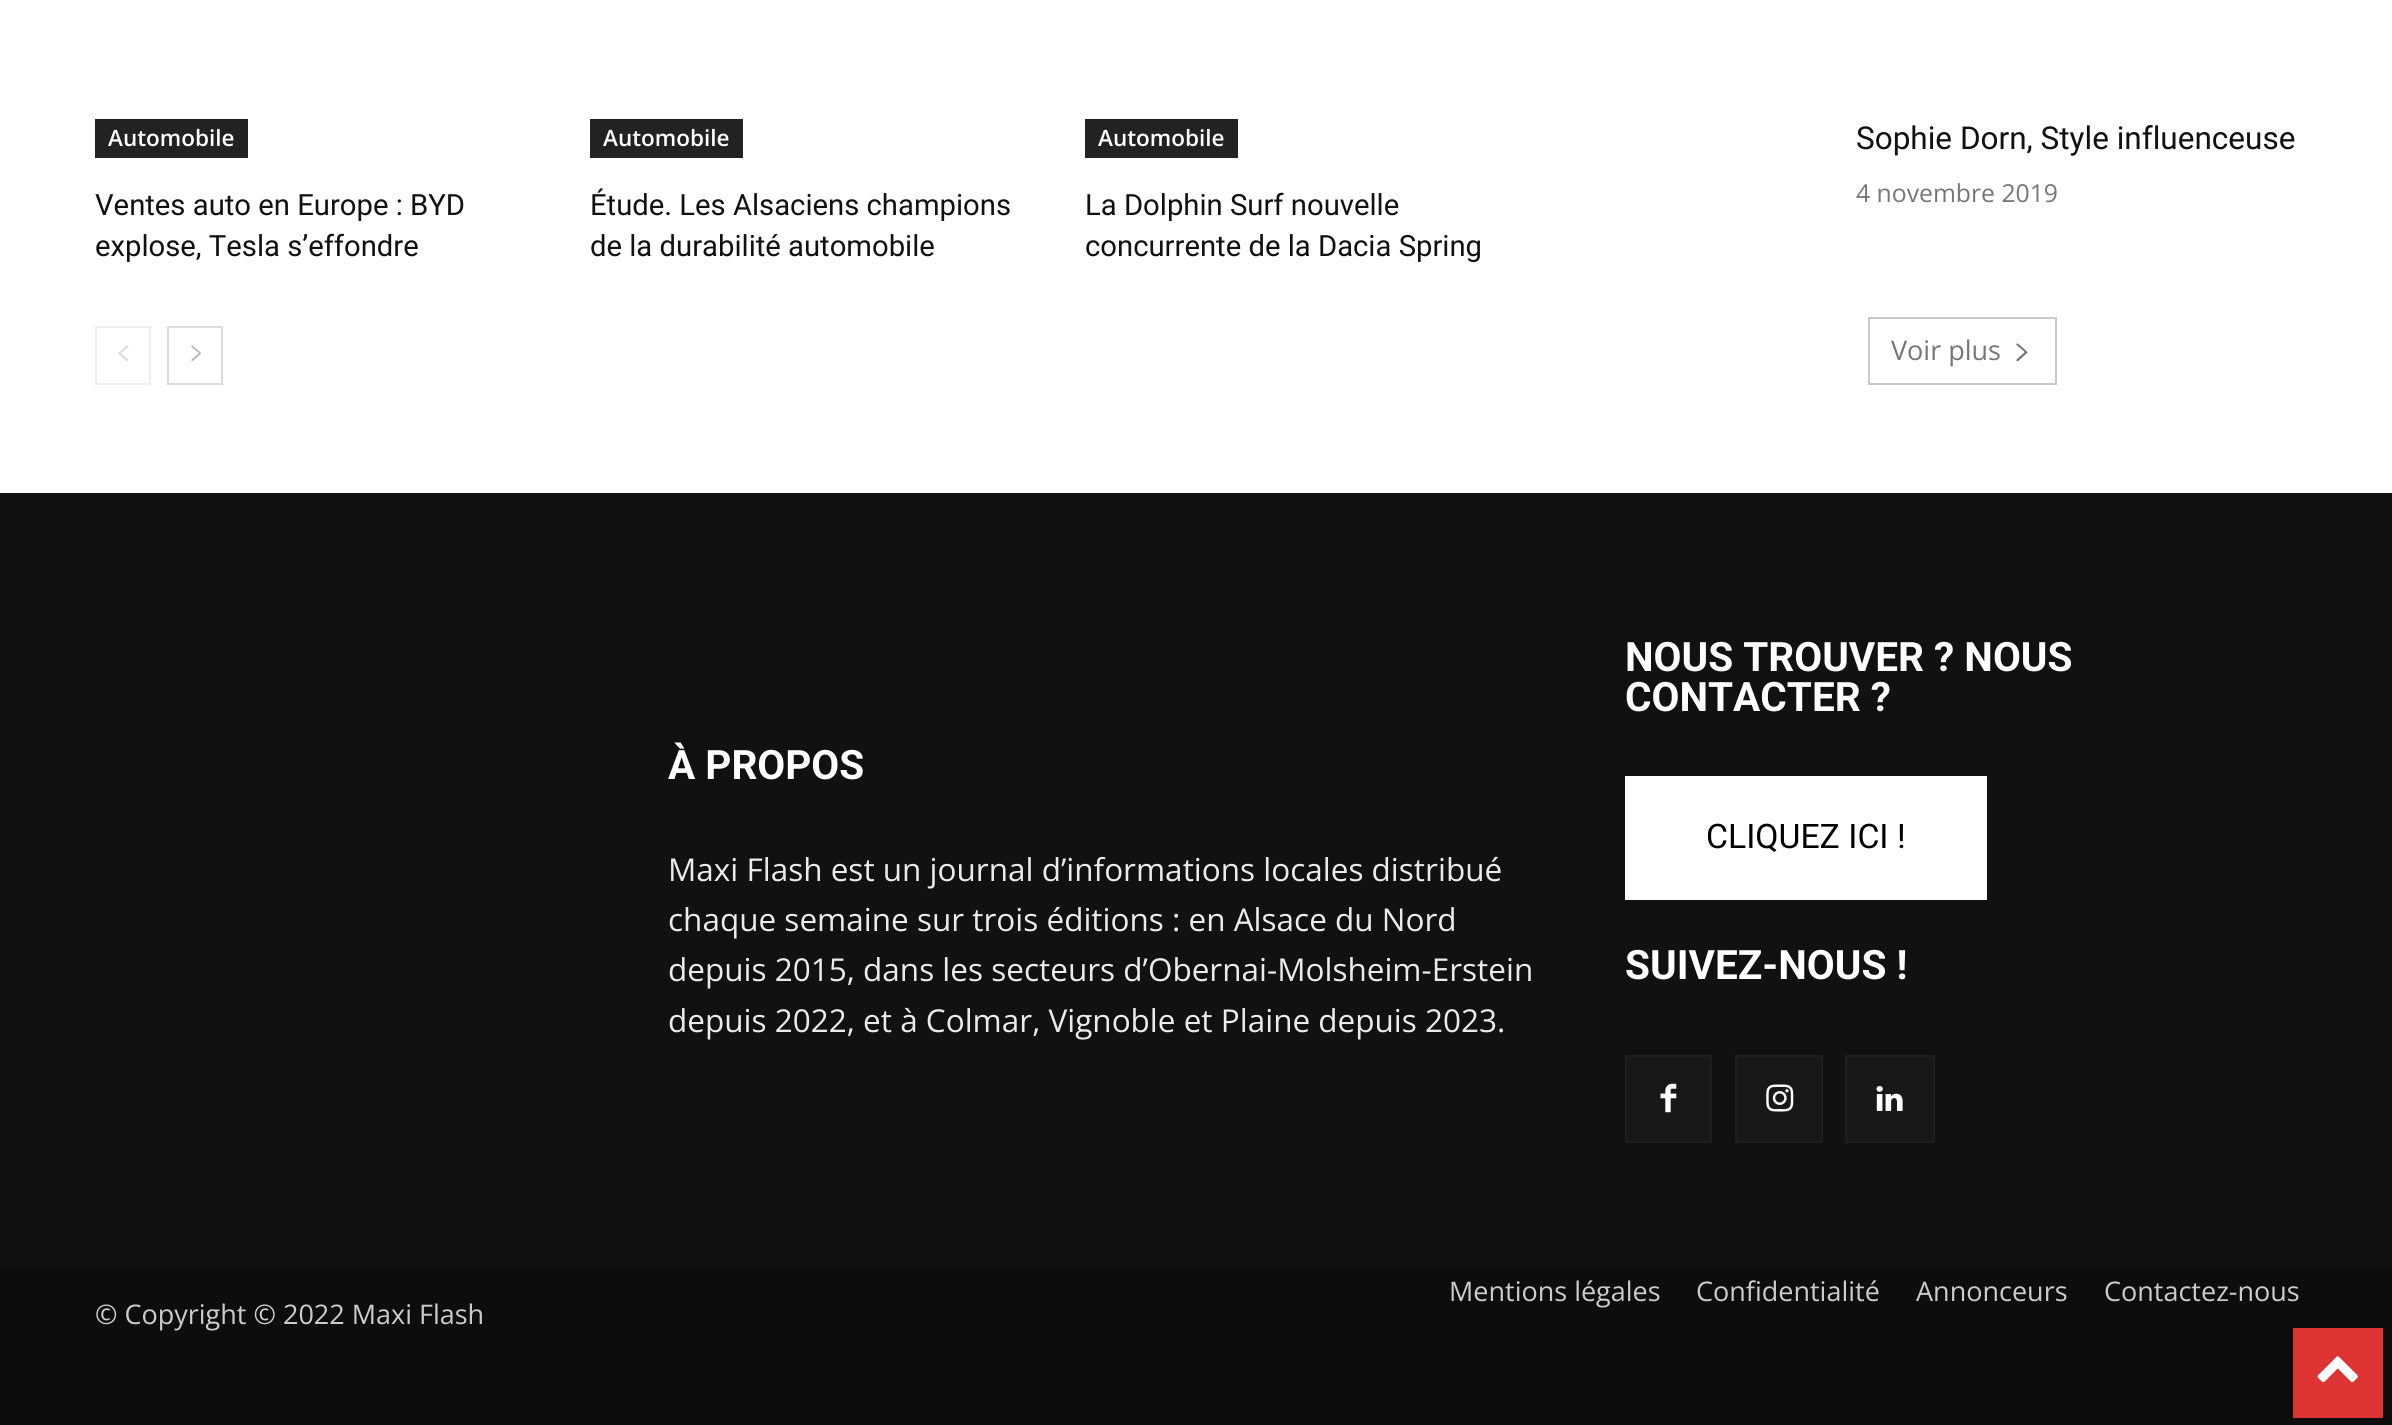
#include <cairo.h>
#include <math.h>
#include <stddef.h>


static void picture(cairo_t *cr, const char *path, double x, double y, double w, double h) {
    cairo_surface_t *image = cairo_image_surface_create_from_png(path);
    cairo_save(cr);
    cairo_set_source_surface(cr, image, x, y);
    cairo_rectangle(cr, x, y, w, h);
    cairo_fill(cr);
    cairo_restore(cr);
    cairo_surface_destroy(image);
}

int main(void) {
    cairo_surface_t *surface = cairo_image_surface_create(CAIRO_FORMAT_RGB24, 2392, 1425);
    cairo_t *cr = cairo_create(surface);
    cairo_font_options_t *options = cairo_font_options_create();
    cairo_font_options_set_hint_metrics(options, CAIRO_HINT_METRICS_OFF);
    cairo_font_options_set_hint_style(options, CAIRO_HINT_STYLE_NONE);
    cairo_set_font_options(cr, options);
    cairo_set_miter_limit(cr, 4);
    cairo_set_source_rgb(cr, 1, 1, 1);
    cairo_paint(cr);
    cairo_set_source_rgb(cr, 0.133, 0.133, 0.133);
    cairo_rectangle(cr, 95, 119, 153, 39);
    cairo_fill(cr);
    cairo_select_font_face(cr, "Open Sans SemiBold", CAIRO_FONT_SLANT_NORMAL, CAIRO_FONT_WEIGHT_NORMAL);
    cairo_set_font_size(cr, 22.5);
    cairo_set_source_rgb(cr, 1, 1, 1);
    cairo_move_to(cr, 108, 146);
    cairo_show_text(cr, "Automobile");
    cairo_select_font_face(cr, "Roboto", CAIRO_FONT_SLANT_NORMAL, CAIRO_FONT_WEIGHT_NORMAL);
    cairo_set_font_size(cr, 29.25);
    cairo_set_source_rgb(cr, 0.067, 0.067, 0.067);
    cairo_move_to(cr, 95, 215);
    cairo_show_text(cr, "Ventes auto en Europe : BYD");
    cairo_move_to(cr, 95, 256);
    cairo_show_text(cr, "explose, Tesla s’effondre");
    cairo_set_source_rgb(cr, 0.133, 0.133, 0.133);
    cairo_rectangle(cr, 590, 119, 153, 39);
    cairo_fill(cr);
    cairo_select_font_face(cr, "Open Sans SemiBold", CAIRO_FONT_SLANT_NORMAL, CAIRO_FONT_WEIGHT_NORMAL);
    cairo_set_font_size(cr, 22.5);
    cairo_set_source_rgb(cr, 1, 1, 1);
    cairo_move_to(cr, 603, 146);
    cairo_show_text(cr, "Automobile");
    cairo_select_font_face(cr, "Roboto", CAIRO_FONT_SLANT_NORMAL, CAIRO_FONT_WEIGHT_NORMAL);
    cairo_set_font_size(cr, 29.25);
    cairo_set_source_rgb(cr, 0.067, 0.067, 0.067);
    cairo_move_to(cr, 590, 215);
    cairo_show_text(cr, "Étude. Les Alsaciens champions");
    cairo_move_to(cr, 590, 256);
    cairo_show_text(cr, "de la durabilité automobile");
    cairo_set_source_rgb(cr, 0.133, 0.133, 0.133);
    cairo_rectangle(cr, 1085, 119, 153, 39);
    cairo_fill(cr);
    cairo_select_font_face(cr, "Open Sans SemiBold", CAIRO_FONT_SLANT_NORMAL, CAIRO_FONT_WEIGHT_NORMAL);
    cairo_set_font_size(cr, 22.5);
    cairo_set_source_rgb(cr, 1, 1, 1);
    cairo_move_to(cr, 1098, 146);
    cairo_show_text(cr, "Automobile");
    cairo_select_font_face(cr, "Roboto", CAIRO_FONT_SLANT_NORMAL, CAIRO_FONT_WEIGHT_NORMAL);
    cairo_set_font_size(cr, 29.25);
    cairo_set_source_rgb(cr, 0.067, 0.067, 0.067);
    cairo_move_to(cr, 1085, 215);
    cairo_show_text(cr, "La Dolphin Surf nouvelle");
    cairo_move_to(cr, 1085, 256);
    cairo_show_text(cr, "concurrente de la Dacia Spring");
    cairo_rectangle(cr, 96, 327, 54, 57);
    cairo_set_source_rgb(cr, 0.933, 0.933, 0.933);
    cairo_stroke(cr);
    picture(cr, "img1.png", 118, 345, 11, 16);
    cairo_rectangle(cr, 168, 327, 54, 57);
    cairo_set_source_rgb(cr, 0.863, 0.863, 0.863);
    cairo_stroke(cr);
    picture(cr, "img2.png", 191, 345, 10, 17);
    cairo_set_font_size(cr, 31.5);
    cairo_set_source_rgb(cr, 0.067, 0.067, 0.067);
    cairo_move_to(cr, 1856, 149);
    cairo_show_text(cr, "Sophie Dorn, Style influenceuse");
    cairo_select_font_face(cr, "Open Sans", CAIRO_FONT_SLANT_NORMAL, CAIRO_FONT_WEIGHT_NORMAL);
    cairo_set_font_size(cr, 24.75);
    cairo_set_source_rgb(cr, 0.463, 0.463, 0.463);
    cairo_move_to(cr, 1856, 202);
    cairo_show_text(cr, "4 novembre 2019");
    cairo_rectangle(cr, 1869, 318, 187, 66);
    cairo_set_source_rgb(cr, 0.788, 0.788, 0.788);
    cairo_stroke(cr);
    cairo_set_font_size(cr, 27);
    cairo_set_source_rgb(cr, 0.463, 0.463, 0.463);
    cairo_move_to(cr, 1891, 360);
    cairo_show_text(cr, "Voir plus");
    picture(cr, "img3.png", 2016, 343, 12, 19);
    cairo_set_source_rgb(cr, 0.067, 0.067, 0.067);
    cairo_rectangle(cr, 0, 493, 2392, 774);
    cairo_fill(cr);
    cairo_select_font_face(cr, "Roboto", CAIRO_FONT_SLANT_NORMAL, CAIRO_FONT_WEIGHT_BOLD);
    cairo_set_font_size(cr, 40.5);
    cairo_set_source_rgb(cr, 1, 1, 1);
    cairo_move_to(cr, 668, 779);
    cairo_show_text(cr, "À PROPOS");
    cairo_select_font_face(cr, "Open Sans", CAIRO_FONT_SLANT_NORMAL, CAIRO_FONT_WEIGHT_NORMAL);
    cairo_set_font_size(cr, 31.5);
    cairo_set_source_rgb(cr, 0.918, 0.918, 0.918);
    cairo_move_to(cr, 668, 881);
    cairo_show_text(cr, "Maxi Flash est un journal d’informations locales distribué");
    cairo_move_to(cr, 668, 931);
    cairo_show_text(cr, "chaque semaine sur trois éditions : en Alsace du Nord");
    cairo_move_to(cr, 668, 981);
    cairo_show_text(cr, "depuis 2015, dans les secteurs d’Obernai-Molsheim-Erstein");
    cairo_move_to(cr, 668, 1032);
    cairo_show_text(cr, "depuis 2022, et à Colmar, Vignoble et Plaine depuis 2023.");
    cairo_select_font_face(cr, "Roboto", CAIRO_FONT_SLANT_NORMAL, CAIRO_FONT_WEIGHT_BOLD);
    cairo_set_font_size(cr, 40.5);
    cairo_set_source_rgb(cr, 1, 1, 1);
    cairo_move_to(cr, 1625, 671);
    cairo_show_text(cr, "NOUS TROUVER ? NOUS");
    cairo_move_to(cr, 1625, 711);
    cairo_show_text(cr, "CONTACTER ?");
    cairo_rectangle(cr, 1625, 776, 362, 124);
    cairo_fill(cr);
    cairo_select_font_face(cr, "Roboto", CAIRO_FONT_SLANT_NORMAL, CAIRO_FONT_WEIGHT_NORMAL);
    cairo_set_font_size(cr, 33.75);
    cairo_set_source_rgb(cr, 0, 0, 0);
    cairo_move_to(cr, 1706, 848);
    cairo_show_text(cr, "CLIQUEZ ICI !");
    cairo_select_font_face(cr, "Roboto", CAIRO_FONT_SLANT_NORMAL, CAIRO_FONT_WEIGHT_BOLD);
    cairo_set_font_size(cr, 40.5);
    cairo_set_source_rgb(cr, 1, 1, 1);
    cairo_move_to(cr, 1625, 979);
    cairo_show_text(cr, "SUIVEZ-NOUS !");
    cairo_set_source_rgb(cr, 0.094, 0.094, 0.094);
    cairo_rectangle(cr, 1626, 1056, 85, 86);
    cairo_fill_preserve(cr);
    cairo_set_source_rgb(cr, 0.122, 0.122, 0.122);
    cairo_stroke(cr);
    picture(cr, "img4.png", 1660, 1083, 17, 30);
    cairo_set_source_rgb(cr, 0.094, 0.094, 0.094);
    cairo_rectangle(cr, 1736, 1056, 86, 86);
    cairo_fill_preserve(cr);
    cairo_set_source_rgb(cr, 0.122, 0.122, 0.122);
    cairo_stroke(cr);
    picture(cr, "img5.png", 1766, 1084, 28, 28);
    cairo_set_source_rgb(cr, 0.094, 0.094, 0.094);
    cairo_rectangle(cr, 1846, 1056, 88, 86);
    cairo_fill_preserve(cr);
    cairo_set_source_rgb(cr, 0.122, 0.122, 0.122);
    cairo_stroke(cr);
    picture(cr, "img6.png", 1876, 1086, 27, 25);
    cairo_set_source_rgb(cr, 0.051, 0.051, 0.051);
    cairo_rectangle(cr, 0, 1267, 2392, 158);
    cairo_fill(cr);
    cairo_select_font_face(cr, "Open Sans", CAIRO_FONT_SLANT_NORMAL, CAIRO_FONT_WEIGHT_NORMAL);
    cairo_set_font_size(cr, 27);
    cairo_set_source_rgb(cr, 0.8, 0.8, 0.8);
    cairo_move_to(cr, 1449, 1301);
    cairo_show_text(cr, "Mentions légales");
    cairo_move_to(cr, 1696, 1301);
    cairo_show_text(cr, "Confidentialité");
    cairo_move_to(cr, 1916, 1301);
    cairo_show_text(cr, "Annonceurs");
    cairo_move_to(cr, 2104, 1301);
    cairo_show_text(cr, "Contactez-nous");
    cairo_move_to(cr, 95, 1324);
    cairo_show_text(cr, "© Copyright © 2022 Maxi Flash");
    cairo_set_source_rgb(cr, 0.867, 0.2, 0.2);
    cairo_rectangle(cr, 2293, 1328, 90, 90);
    cairo_fill(cr);
    picture(cr, "img7.png", 2317, 1356, 41, 27);
    cairo_surface_write_to_png(surface, "page.png");
    cairo_font_options_destroy(options);
    cairo_destroy(cr);
    cairo_surface_destroy(surface);
    return 0;
}
